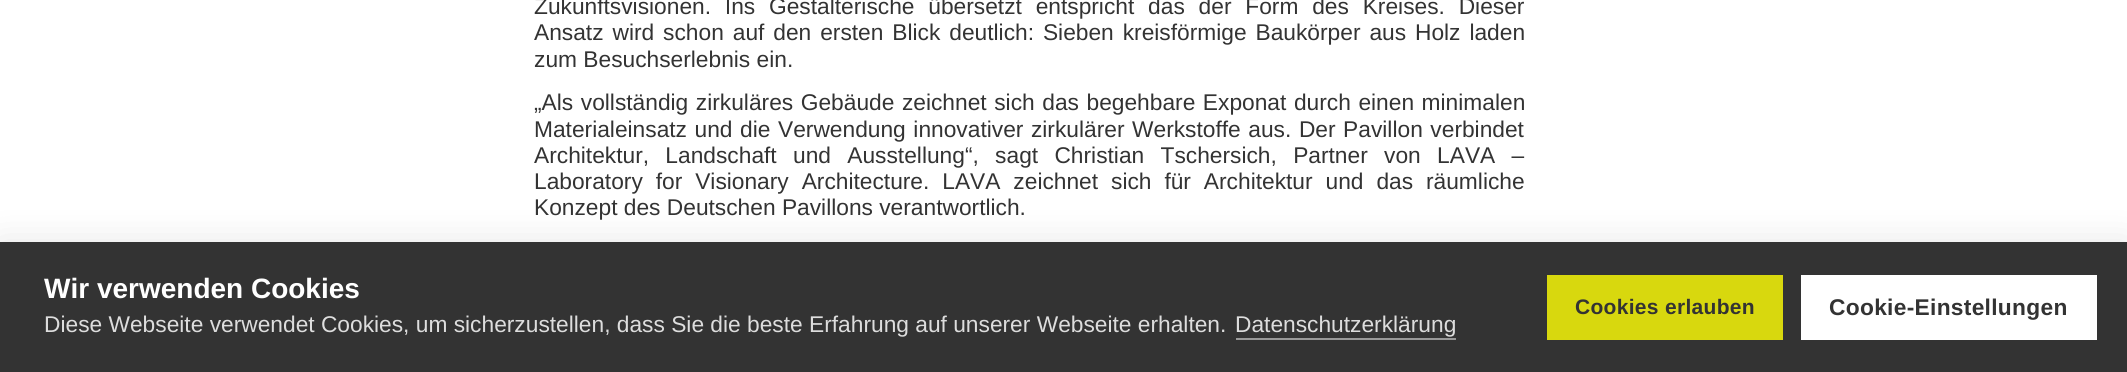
#include <cairo.h>
#include <math.h>
#include <stddef.h>


static void spaced_text(cairo_t *cr, double x, double y, const char *s, double letter, double word) {
    cairo_move_to(cr, x, y);
    while (*s) {
        char ch[5] = {0};
        int n = 0;
        do ch[n++] = *s++; while ((*s & 0xC0) == 0x80);
        cairo_show_text(cr, ch);
        cairo_rel_move_to(cr, letter + word * (*ch == ' '), 0);
    }
}

static void round_rect(cairo_t *cr, double x, double y, double w, double h, double r) {
    cairo_new_sub_path(cr);
    cairo_arc(cr, x + w - r, y + h - r, r, 0, M_PI / 2);
    cairo_arc(cr, x + r, y + h - r, r, M_PI / 2, M_PI);
    cairo_arc(cr, x + r, y + r, r, M_PI, 1.5 * M_PI);
    cairo_arc(cr, x + w - r, y + r, r, 1.5 * M_PI, 2 * M_PI);
    cairo_close_path(cr);
}

static void shadow(cairo_t *cr, double x, double y, double w, double h, double r, double blur, double alpha) {
    cairo_push_group_with_content(cr, CAIRO_CONTENT_ALPHA);
    cairo_set_operator(cr, CAIRO_OPERATOR_SOURCE);
    for (int i = 15; i >= -15 && fmin(w, h) + blur * i / 3 > 0; i -= 2) {
        double e = blur * i / 6;
        cairo_set_source_rgba(cr, 0, 0, 0, alpha * erfc((i - 1) / 8.5) / 2);
        round_rect(cr, x - e, y - e, w + 2 * e, h + 2 * e, fmax(0, fmin(r + e + blur * .6, fmin(w, h) / 2 + e)));
        cairo_fill(cr);
    }
    cairo_pattern_t *soft = cairo_pop_group(cr);
    cairo_mask(cr, soft);
    cairo_pattern_destroy(soft);
}

int main(void) {
    cairo_surface_t *surface = cairo_image_surface_create(CAIRO_FORMAT_RGB24, 2127, 372);
    cairo_t *cr = cairo_create(surface);
    cairo_font_options_t *options = cairo_font_options_create();
    cairo_font_options_set_hint_metrics(options, CAIRO_HINT_METRICS_OFF);
    cairo_font_options_set_hint_style(options, CAIRO_HINT_STYLE_NONE);
    cairo_set_font_options(cr, options);
    cairo_set_miter_limit(cr, 4);
    cairo_set_source_rgb(cr, 1, 1, 1);
    cairo_paint(cr);
    cairo_select_font_face(cr, "Liberation Sans", CAIRO_FONT_SLANT_NORMAL, CAIRO_FONT_WEIGHT_NORMAL);
    cairo_set_font_size(cr, 22.75);
    cairo_set_source_rgb(cr, 0.2, 0.2, 0.2);
    spaced_text(cr, 534, 14, "Zukunftsvisionen. Ins Gestalterische übersetzt entspricht das der Form des Kreises. Dieser", 0, 7.5);
    spaced_text(cr, 534, 40, "Ansatz wird schon auf den ersten Blick deutlich: Sieben kreisförmige Baukörper aus Holz laden", 0, 2.6);
    cairo_move_to(cr, 534, 67);
    cairo_show_text(cr, "zum Besuchserlebnis ein.");
    spaced_text(cr, 534, 110, "„Als vollständig zirkuläres Gebäude zeichnet sich das begehbare Exponat durch einen minimalen", 0, 1.25);
    spaced_text(cr, 534, 137, "Materialeinsatz und die Verwendung innovativer zirkulärer Werkstoffe aus. Der Pavillon verbindet", 0, 1.25);
    spaced_text(cr, 534, 163, "Architektur, Landschaft und Ausstellung“, sagt Christian Tschersich, Partner von LAVA –", 0, 10);
    spaced_text(cr, 534, 189, "Laboratory for Visionary Architecture. LAVA zeichnet sich für Architektur und das räumliche", 0, 6.6);
    cairo_move_to(cr, 534, 215);
    cairo_show_text(cr, "Konzept des Deutschen Pavillons verantwortlich.");
    cairo_set_source_rgb(cr, 0, 0, 0);
    shadow(cr, 0, 242, 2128, 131, 0, 17.5, 0.1);
    cairo_set_source_rgb(cr, 0.2, 0.2, 0.2);
    cairo_rectangle(cr, 0, 242, 2127, 130);
    cairo_fill(cr);
    cairo_select_font_face(cr, "Liberation Sans", CAIRO_FONT_SLANT_NORMAL, CAIRO_FONT_WEIGHT_BOLD);
    cairo_set_font_size(cr, 28);
    cairo_set_source_rgb(cr, 1, 1, 1);
    cairo_move_to(cr, 44, 298);
    cairo_show_text(cr, "Wir verwenden Cookies");
    cairo_select_font_face(cr, "Liberation Sans", CAIRO_FONT_SLANT_NORMAL, CAIRO_FONT_WEIGHT_NORMAL);
    cairo_set_font_size(cr, 22.75);
    cairo_set_source_rgb(cr, 0.867, 0.867, 0.867);
    cairo_move_to(cr, 44, 332);
    cairo_show_text(cr, "Diese Webseite verwendet Cookies, um sicherzustellen, dass Sie die beste Erfahrung auf unserer Webseite erhalten.");
    cairo_move_to(cr, 1235, 332);
    cairo_show_text(cr, "Datenschutzerklärung");
    cairo_set_source_rgb(cr, 0.6, 0.6, 0.6);
    cairo_rectangle(cr, 1236, 338, 220, 2);
    cairo_fill(cr);
    cairo_set_source_rgb(cr, 0.847, 0.847, 0.055);
    cairo_rectangle(cr, 1547, 275, 236, 65);
    cairo_fill(cr);
    cairo_select_font_face(cr, "Liberation Sans", CAIRO_FONT_SLANT_NORMAL, CAIRO_FONT_WEIGHT_BOLD);
    cairo_set_font_size(cr, 21);
    cairo_set_source_rgb(cr, 0.2, 0.2, 0.2);
    spaced_text(cr, 1575, 314, "Cookies erlauben", 0.3, 0);
    cairo_set_source_rgb(cr, 1, 1, 1);
    cairo_rectangle(cr, 1801, 275, 296, 65);
    cairo_fill(cr);
    cairo_set_font_size(cr, 22.75);
    cairo_set_source_rgb(cr, 0.2, 0.2, 0.2);
    spaced_text(cr, 1829, 315, "Cookie-Einstellungen", 0.3, 0);
    cairo_surface_write_to_png(surface, "page.png");
    cairo_font_options_destroy(options);
    cairo_destroy(cr);
    cairo_surface_destroy(surface);
    return 0;
}
